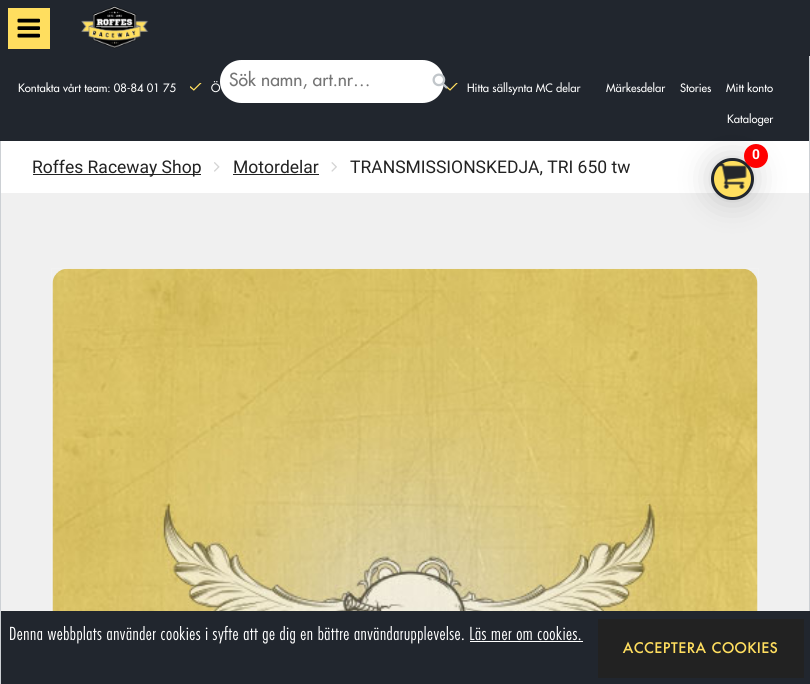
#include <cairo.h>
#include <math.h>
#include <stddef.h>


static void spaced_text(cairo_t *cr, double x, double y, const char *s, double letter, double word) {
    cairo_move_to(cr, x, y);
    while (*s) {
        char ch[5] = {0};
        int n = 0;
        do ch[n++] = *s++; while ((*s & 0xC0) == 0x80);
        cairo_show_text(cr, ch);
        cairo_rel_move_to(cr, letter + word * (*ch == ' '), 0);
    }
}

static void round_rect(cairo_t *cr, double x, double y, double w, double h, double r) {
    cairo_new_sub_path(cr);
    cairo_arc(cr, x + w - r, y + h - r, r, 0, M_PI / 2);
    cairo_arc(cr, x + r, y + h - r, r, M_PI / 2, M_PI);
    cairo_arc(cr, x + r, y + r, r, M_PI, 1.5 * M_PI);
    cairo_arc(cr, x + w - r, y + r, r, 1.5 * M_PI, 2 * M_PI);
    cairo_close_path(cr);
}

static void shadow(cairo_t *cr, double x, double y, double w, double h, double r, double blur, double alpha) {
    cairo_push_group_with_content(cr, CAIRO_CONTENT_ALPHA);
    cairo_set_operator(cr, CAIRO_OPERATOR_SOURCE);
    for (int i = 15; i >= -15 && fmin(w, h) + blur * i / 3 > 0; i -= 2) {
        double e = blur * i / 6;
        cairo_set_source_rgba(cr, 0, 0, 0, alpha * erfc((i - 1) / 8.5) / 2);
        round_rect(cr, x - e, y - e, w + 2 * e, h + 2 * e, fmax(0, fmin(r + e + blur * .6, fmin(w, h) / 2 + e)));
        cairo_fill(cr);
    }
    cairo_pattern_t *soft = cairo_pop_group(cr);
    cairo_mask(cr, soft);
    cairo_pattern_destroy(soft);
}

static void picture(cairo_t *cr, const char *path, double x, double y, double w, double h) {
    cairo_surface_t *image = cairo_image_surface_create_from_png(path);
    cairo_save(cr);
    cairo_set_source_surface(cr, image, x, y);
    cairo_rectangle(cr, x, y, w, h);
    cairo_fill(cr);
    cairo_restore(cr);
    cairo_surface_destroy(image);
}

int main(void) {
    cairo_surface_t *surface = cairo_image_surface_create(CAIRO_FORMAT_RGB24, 810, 684);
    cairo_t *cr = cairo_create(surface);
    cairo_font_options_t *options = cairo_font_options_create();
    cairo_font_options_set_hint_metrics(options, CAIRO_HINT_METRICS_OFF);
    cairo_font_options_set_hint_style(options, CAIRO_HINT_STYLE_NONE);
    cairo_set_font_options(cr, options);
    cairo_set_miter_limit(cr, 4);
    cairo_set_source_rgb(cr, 1, 1, 1);
    cairo_paint(cr);
    cairo_rectangle(cr, 0.5, 0.5, 809, 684);
    cairo_set_source_rgb(cr, 0.8, 0.816, 0.831);
    cairo_set_line_width(cr, 1);
    cairo_stroke(cr);
    cairo_set_source_rgb(cr, 0.129, 0.149, 0.18);
    cairo_rectangle(cr, 0, 0, 810, 56);
    cairo_fill(cr);
    cairo_set_source_rgb(cr, 1, 0.871, 0.373);
    cairo_rectangle(cr, 8, 8, 42, 41);
    cairo_fill(cr);
    picture(cr, "img1.png", 17, 18, 23, 20);
    picture(cr, "img2.png", 81, 6, 68, 43);
    cairo_set_source_rgb(cr, 0.129, 0.149, 0.18);
    cairo_rectangle(cr, 0, 56, 809, 85);
    cairo_fill(cr);
    cairo_set_source_rgb(cr, 1, 1, 1);
    round_rect(cr, 220, 60, 224, 43, 21.5);
    cairo_fill(cr);
    cairo_select_font_face(cr, "Futura", CAIRO_FONT_SLANT_NORMAL, CAIRO_FONT_WEIGHT_NORMAL);
    cairo_set_font_size(cr, 17.5);
    cairo_set_source_rgb(cr, 0.459, 0.459, 0.459);
    cairo_move_to(cr, 229, 86);
    cairo_show_text(cr, "Sök namn, art.nr…");
    picture(cr, "img6.png", 446, 83, 12, 8);
    picture(cr, "img3.png", 432, 73, 16, 16);
    cairo_set_source_rgb(cr, 0.941, 0.941, 0.941);
    cairo_rectangle(cr, 1, 193, 808, 418);
    cairo_fill(cr);
    cairo_set_source_rgb(cr, 0, 0, 0);
    shadow(cr, 711, 158, 43, 42, 21, 15.5, 0.2);
    cairo_set_source_rgb(cr, 1, 0.875, 0.373);
    round_rect(cr, 712.5, 159.5, 40, 39, 19.5);
    cairo_fill_preserve(cr);
    cairo_set_source_rgb(cr, 0.129, 0.149, 0.18);
    cairo_set_line_width(cr, 3);
    cairo_stroke(cr);
    cairo_set_source_rgb(cr, 1, 0, 0);
    cairo_arc(cr, 756, 156, 12, 0, 2 * M_PI);
    cairo_fill(cr);
    picture(cr, "img4.png", 717, 163, 30, 26);
    cairo_select_font_face(cr, "Roboto", CAIRO_FONT_SLANT_NORMAL, CAIRO_FONT_WEIGHT_BOLD);
    cairo_set_font_size(cr, 13.75);
    cairo_set_source_rgb(cr, 1, 1, 1);
    cairo_move_to(cr, 752, 159);
    cairo_show_text(cr, "0");
    cairo_select_font_face(cr, "Futura", CAIRO_FONT_SLANT_NORMAL, CAIRO_FONT_WEIGHT_NORMAL);
    cairo_set_font_size(cr, 11.25);
    cairo_move_to(cr, 18, 92);
    cairo_show_text(cr, "Kontakta vårt team: 08-84 01 75");
    picture(cr, "img5.png", 190, 83, 12, 8);
    cairo_move_to(cr, 211, 92);
    cairo_show_text(cr, "Ö");
    cairo_move_to(cr, 467, 92);
    cairo_show_text(cr, "Hitta sällsynta MC delar");
    cairo_move_to(cr, 606, 92);
    cairo_show_text(cr, "Märkesdelar");
    cairo_move_to(cr, 680, 92);
    cairo_show_text(cr, "Stories");
    cairo_move_to(cr, 726, 92);
    cairo_show_text(cr, "Mitt konto");
    cairo_move_to(cr, 727, 123);
    cairo_show_text(cr, "Kataloger");
    cairo_set_source_rgb(cr, 0.133, 0.133, 0.133);
    cairo_rectangle(cr, 33, 174, 168, 1);
    cairo_fill(cr);
    cairo_select_font_face(cr, "Roboto", CAIRO_FONT_SLANT_NORMAL, CAIRO_FONT_WEIGHT_NORMAL);
    cairo_set_font_size(cr, 17.5);
    cairo_move_to(cr, 32, 173);
    cairo_show_text(cr, "Roffes Raceway Shop");
    picture(cr, "img7.png", 214, 162, 6, 10);
    cairo_move_to(cr, 233, 173);
    cairo_show_text(cr, "Motordelar");
    cairo_rectangle(cr, 233, 174, 86, 1);
    cairo_fill(cr);
    picture(cr, "img8.png", 331, 162, 6, 10);
    cairo_move_to(cr, 350, 173);
    cairo_show_text(cr, "TRANSMISSIONSKEDJA, TRI 650 tw");
    cairo_rectangle(cr, 51.5, 268.5, 707, 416);
    cairo_set_source_rgb(cr, 0.949, 0.949, 0.949);
    cairo_set_line_width(cr, 1);
    cairo_stroke(cr);
    picture(cr, "img9.png", 52, 268, 706, 343);
    cairo_set_source_rgb(cr, 0.129, 0.149, 0.18);
    cairo_rectangle(cr, 1, 611, 809, 73);
    cairo_fill(cr);
    cairo_select_font_face(cr, "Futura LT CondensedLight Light", CAIRO_FONT_SLANT_NORMAL, CAIRO_FONT_WEIGHT_NORMAL);
    cairo_set_source_rgb(cr, 1, 1, 1);
    spaced_text(cr, 9, 640, "Denna webbplats använder cookies i syfte att ge dig en bättre användarupplevelse. Läs mer om cookies.", 0.5, 0);
    cairo_rectangle(cr, 470, 641, 113, 1);
    cairo_fill(cr);
    cairo_set_source_rgb(cr, 0.133, 0.133, 0.133);
    cairo_rectangle(cr, 598, 619, 206, 59);
    cairo_fill(cr);
    cairo_select_font_face(cr, "Futura", CAIRO_FONT_SLANT_NORMAL, CAIRO_FONT_WEIGHT_BOLD);
    cairo_set_font_size(cr, 13.75);
    cairo_set_source_rgb(cr, 1, 0.871, 0.373);
    spaced_text(cr, 623, 653, "ACCEPTERA COOKIES", 1.25, 0);
    cairo_surface_write_to_png(surface, "page.png");
    cairo_font_options_destroy(options);
    cairo_destroy(cr);
    cairo_surface_destroy(surface);
    return 0;
}
